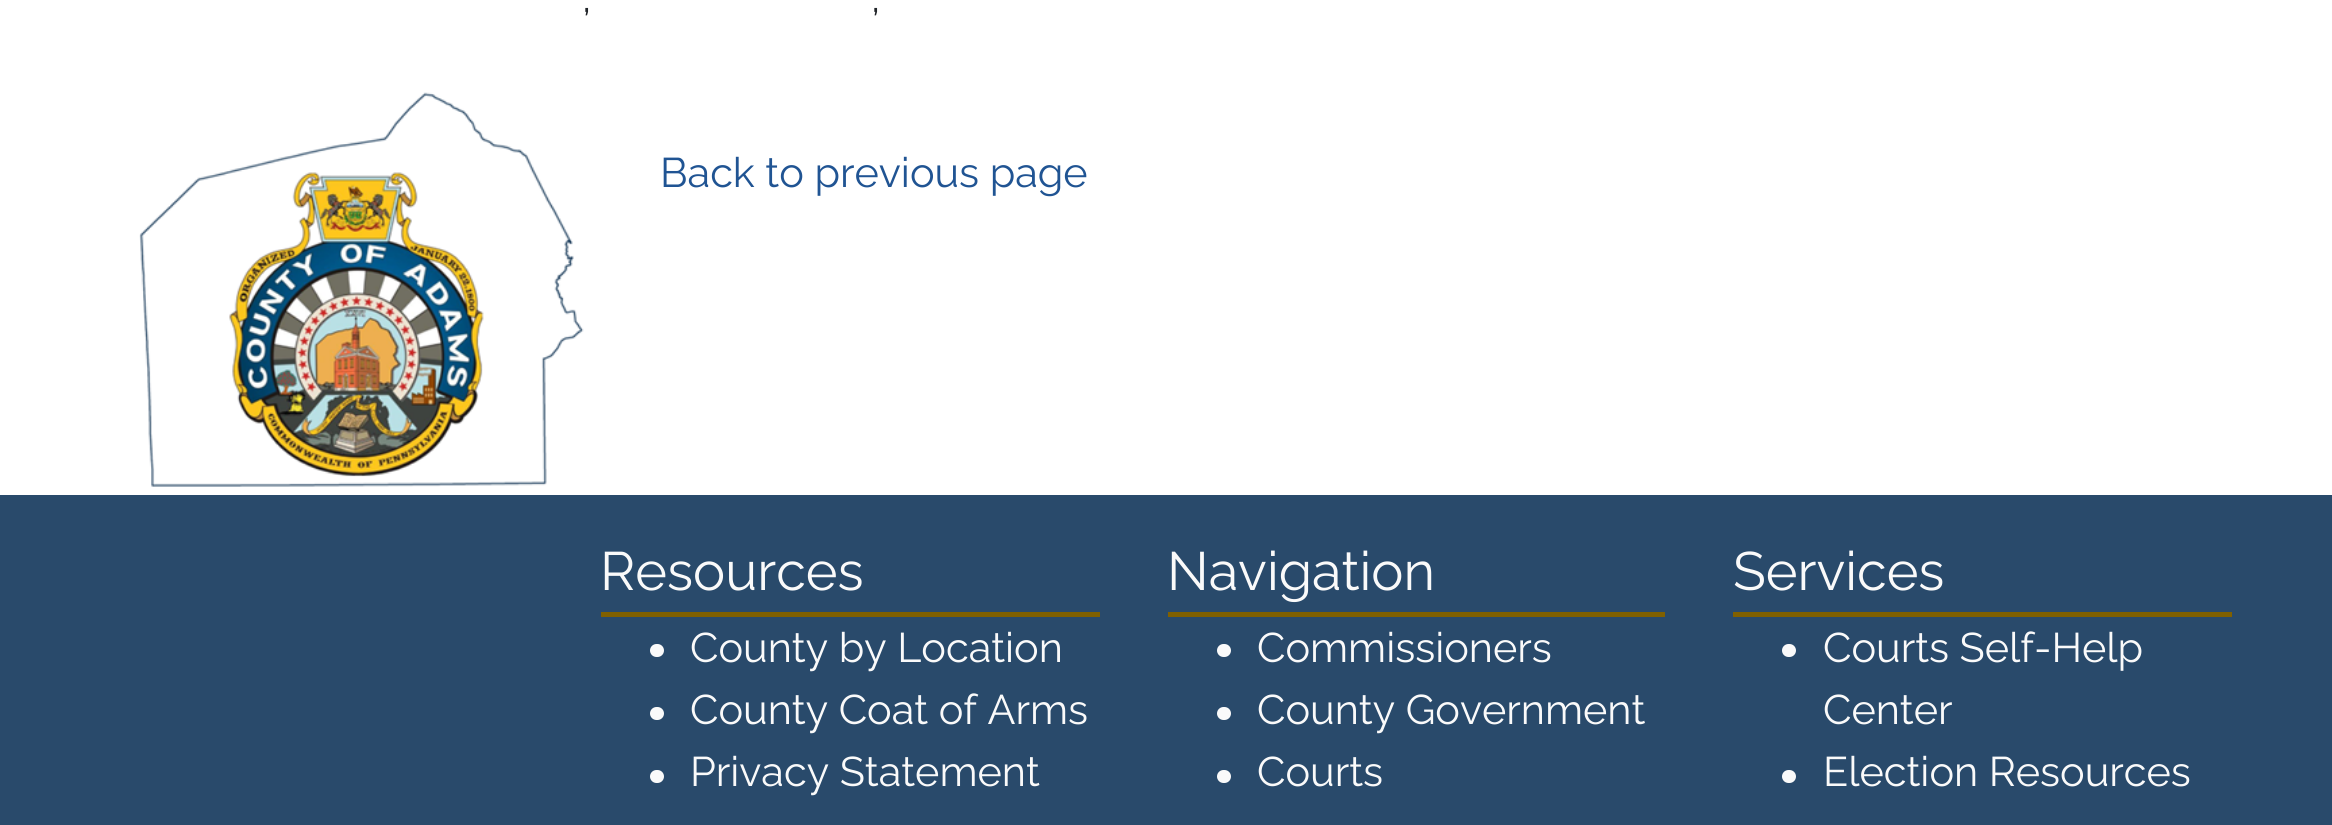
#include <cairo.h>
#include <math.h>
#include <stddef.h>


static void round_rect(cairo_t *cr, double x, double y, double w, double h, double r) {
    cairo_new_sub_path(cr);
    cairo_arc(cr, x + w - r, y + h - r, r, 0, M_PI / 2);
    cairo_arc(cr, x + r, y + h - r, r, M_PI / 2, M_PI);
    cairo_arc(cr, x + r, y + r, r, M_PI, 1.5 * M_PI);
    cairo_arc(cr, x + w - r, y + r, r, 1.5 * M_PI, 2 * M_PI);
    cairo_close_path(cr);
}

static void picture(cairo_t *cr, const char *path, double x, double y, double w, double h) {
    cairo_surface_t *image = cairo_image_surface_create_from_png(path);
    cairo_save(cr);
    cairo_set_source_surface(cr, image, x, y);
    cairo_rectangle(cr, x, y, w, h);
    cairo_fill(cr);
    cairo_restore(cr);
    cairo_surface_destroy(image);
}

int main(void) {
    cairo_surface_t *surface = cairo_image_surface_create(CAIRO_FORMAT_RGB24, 2332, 825);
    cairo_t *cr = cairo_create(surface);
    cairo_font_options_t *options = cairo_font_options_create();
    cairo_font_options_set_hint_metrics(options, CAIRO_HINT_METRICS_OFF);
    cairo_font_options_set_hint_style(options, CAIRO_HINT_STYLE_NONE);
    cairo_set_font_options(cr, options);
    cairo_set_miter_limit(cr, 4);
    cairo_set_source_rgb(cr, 1, 1, 1);
    cairo_paint(cr);
    cairo_select_font_face(cr, "Raleway Thin", CAIRO_FONT_SLANT_NORMAL, CAIRO_FONT_WEIGHT_NORMAL);
    cairo_set_font_size(cr, 41.4);
    cairo_set_source_rgb(cr, 0.129, 0.145, 0.161);
    cairo_move_to(cr, 582, 12);
    cairo_show_text(cr, ",");
    cairo_move_to(cr, 871, 12);
    cairo_show_text(cr, ",");
    picture(cr, "img1.png", 139, 92, 445, 395);
    cairo_set_source_rgb(cr, 0.125, 0.329, 0.576);
    cairo_move_to(cr, 660, 187);
    cairo_show_text(cr, "Back to previous page");
    cairo_set_source_rgb(cr, 0.161, 0.29, 0.42);
    cairo_rectangle(cr, 0, 495, 2332, 330);
    cairo_fill(cr);
    cairo_set_source_rgb(cr, 0.502, 0.376, 0);
    cairo_rectangle(cr, 601, 612, 499, 5);
    cairo_fill(cr);
    cairo_set_font_size(cr, 54);
    cairo_set_source_rgb(cr, 0.98, 0.98, 0.98);
    cairo_move_to(cr, 600, 590);
    cairo_show_text(cr, "Resources");
    round_rect(cr, 650, 644, 14, 13, 6.5);
    cairo_fill(cr);
    cairo_set_font_size(cr, 41.4);
    cairo_move_to(cr, 690, 662);
    cairo_show_text(cr, "County by Location");
    round_rect(cr, 650, 707, 14, 13, 6.5);
    cairo_fill(cr);
    cairo_move_to(cr, 690, 724);
    cairo_show_text(cr, "County Coat of Arms");
    round_rect(cr, 650, 770, 14, 13, 6.5);
    cairo_fill(cr);
    cairo_move_to(cr, 690, 786);
    cairo_show_text(cr, "Privacy Statement");
    cairo_set_source_rgb(cr, 0.502, 0.376, 0);
    cairo_rectangle(cr, 1168, 612, 497, 5);
    cairo_fill(cr);
    cairo_set_font_size(cr, 54);
    cairo_set_source_rgb(cr, 0.98, 0.98, 0.98);
    cairo_move_to(cr, 1167, 590);
    cairo_show_text(cr, "Navigation");
    round_rect(cr, 1217, 644, 14, 13, 6.5);
    cairo_fill(cr);
    cairo_set_font_size(cr, 41.4);
    cairo_move_to(cr, 1257, 662);
    cairo_show_text(cr, "Commissioners");
    round_rect(cr, 1217, 707, 14, 13, 6.5);
    cairo_fill(cr);
    cairo_move_to(cr, 1257, 724);
    cairo_show_text(cr, "County Government");
    round_rect(cr, 1217, 770, 14, 13, 6.5);
    cairo_fill(cr);
    cairo_move_to(cr, 1257, 786);
    cairo_show_text(cr, "Courts");
    cairo_set_source_rgb(cr, 0.502, 0.376, 0);
    cairo_rectangle(cr, 1733, 612, 499, 5);
    cairo_fill(cr);
    cairo_set_font_size(cr, 54);
    cairo_set_source_rgb(cr, 0.98, 0.98, 0.98);
    cairo_move_to(cr, 1733, 590);
    cairo_show_text(cr, "Services");
    round_rect(cr, 1782, 644, 14, 13, 6.5);
    cairo_fill(cr);
    cairo_set_font_size(cr, 41.4);
    cairo_move_to(cr, 1823, 662);
    cairo_show_text(cr, "Courts Self-Help");
    cairo_move_to(cr, 1823, 724);
    cairo_show_text(cr, "Center");
    round_rect(cr, 1782, 770, 14, 13, 6.5);
    cairo_fill(cr);
    cairo_move_to(cr, 1823, 786);
    cairo_show_text(cr, "Election Resources");
    cairo_surface_write_to_png(surface, "page.png");
    cairo_font_options_destroy(options);
    cairo_destroy(cr);
    cairo_surface_destroy(surface);
    return 0;
}
